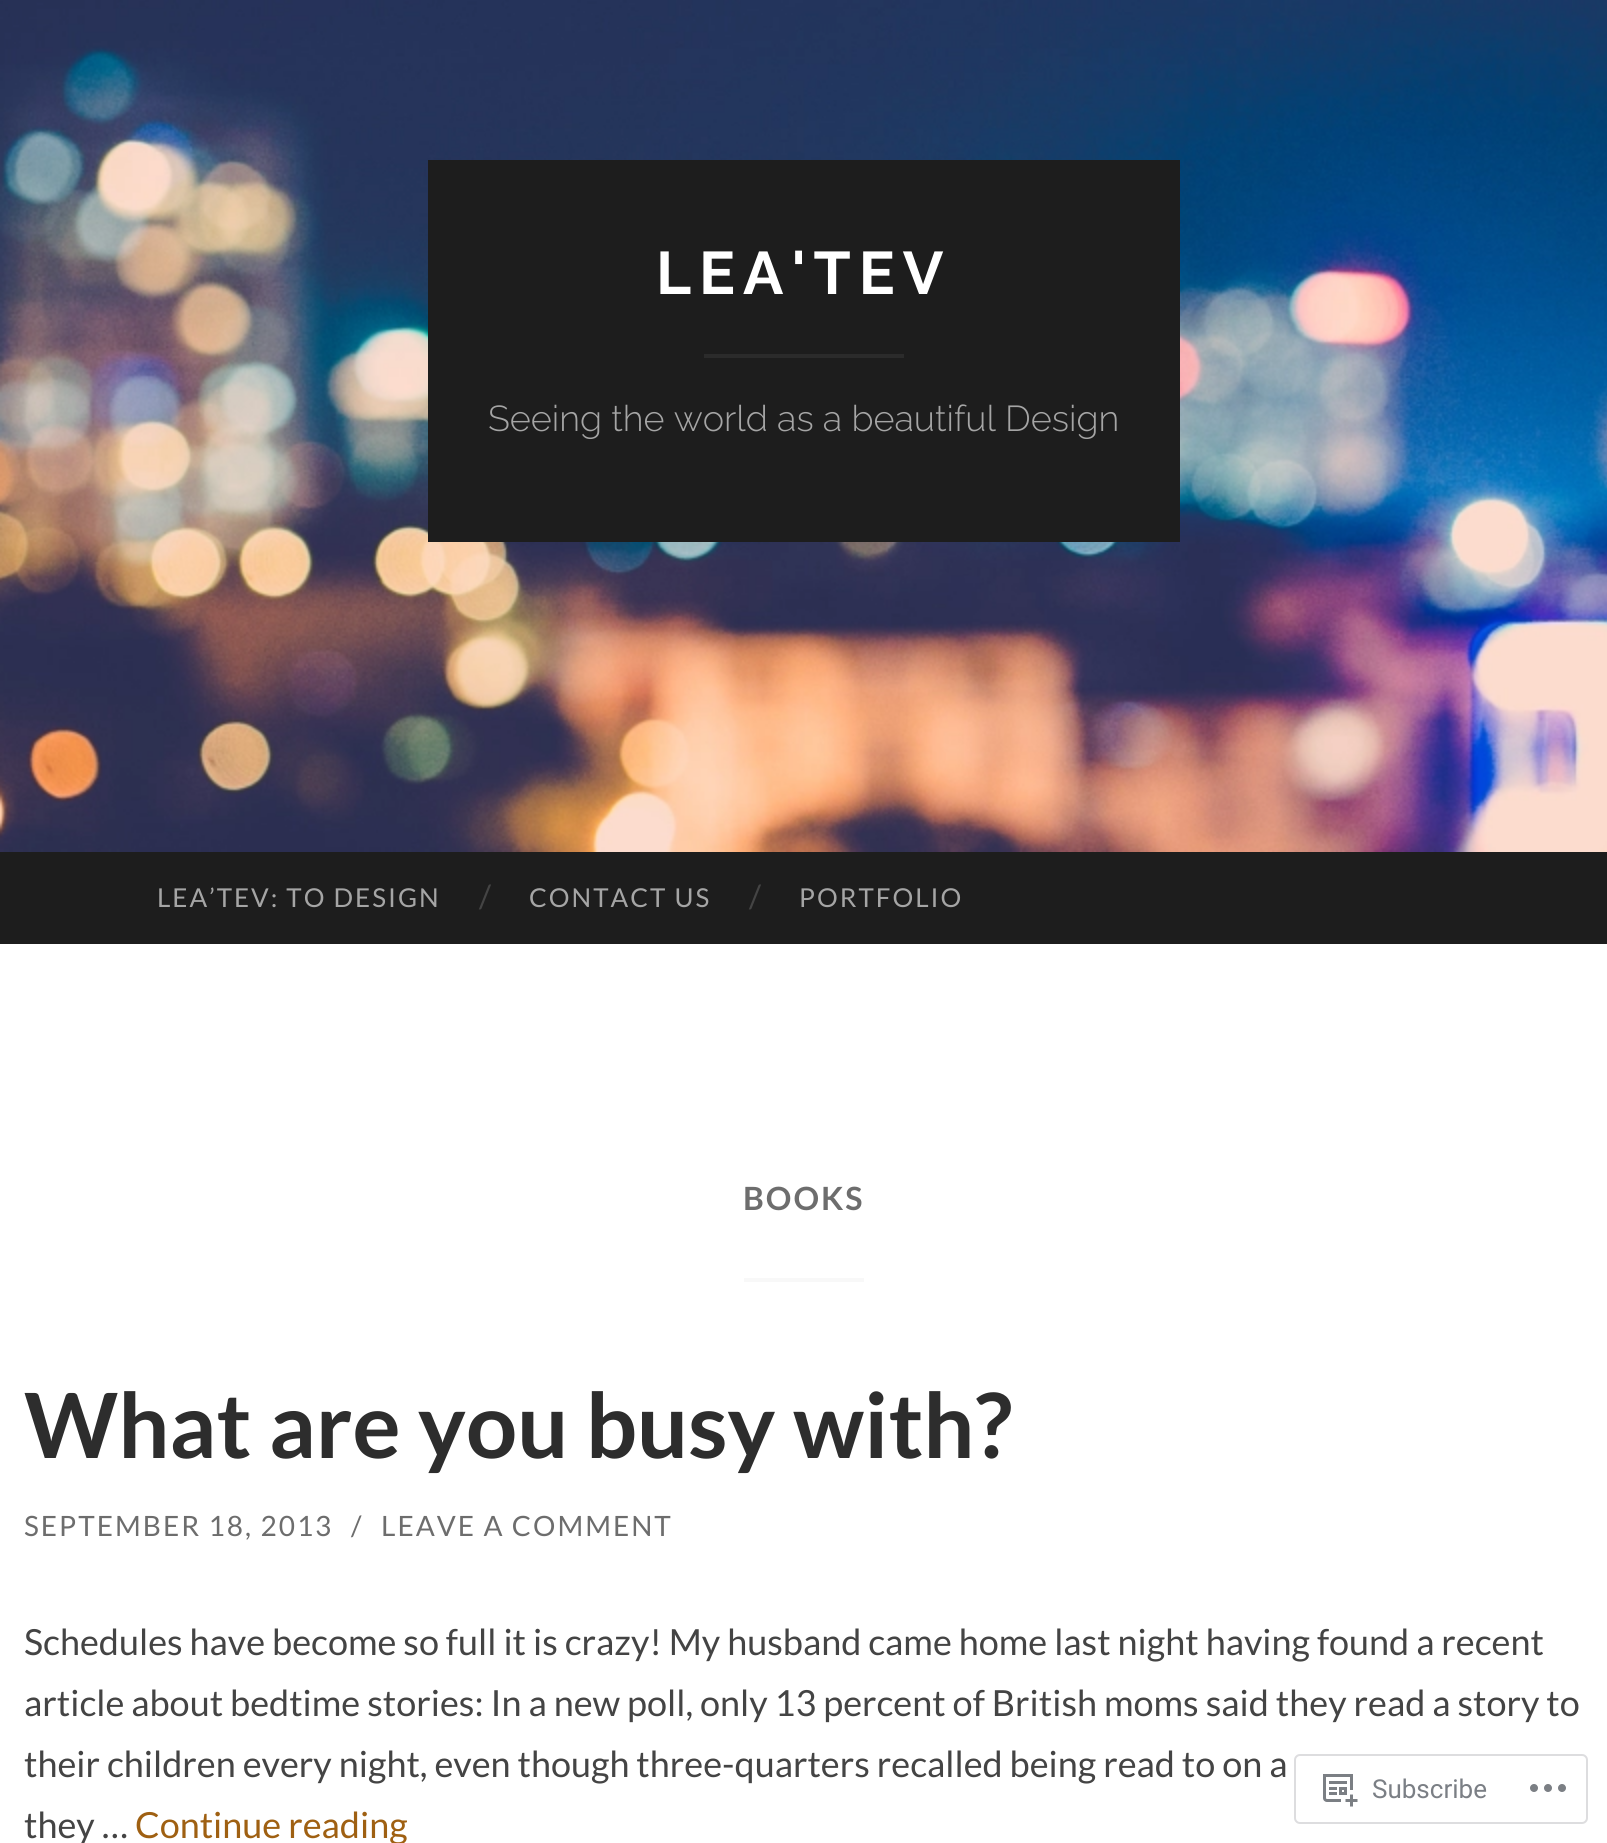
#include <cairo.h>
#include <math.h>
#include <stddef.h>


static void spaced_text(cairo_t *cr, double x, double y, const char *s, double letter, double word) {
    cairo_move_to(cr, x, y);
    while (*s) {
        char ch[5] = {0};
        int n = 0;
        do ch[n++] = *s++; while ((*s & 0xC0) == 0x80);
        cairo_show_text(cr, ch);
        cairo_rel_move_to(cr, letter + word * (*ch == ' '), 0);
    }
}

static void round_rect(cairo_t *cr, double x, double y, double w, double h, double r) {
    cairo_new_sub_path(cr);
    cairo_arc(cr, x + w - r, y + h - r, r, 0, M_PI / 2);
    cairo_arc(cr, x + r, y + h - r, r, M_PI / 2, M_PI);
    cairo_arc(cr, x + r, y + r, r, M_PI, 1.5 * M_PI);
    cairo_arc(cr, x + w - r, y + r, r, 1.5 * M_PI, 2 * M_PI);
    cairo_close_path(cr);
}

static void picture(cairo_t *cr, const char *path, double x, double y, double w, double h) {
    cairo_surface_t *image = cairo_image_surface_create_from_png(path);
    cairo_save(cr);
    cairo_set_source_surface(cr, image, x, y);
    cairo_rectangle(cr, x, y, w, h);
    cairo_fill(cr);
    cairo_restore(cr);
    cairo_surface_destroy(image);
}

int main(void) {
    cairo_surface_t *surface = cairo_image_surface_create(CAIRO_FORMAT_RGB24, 1607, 1843);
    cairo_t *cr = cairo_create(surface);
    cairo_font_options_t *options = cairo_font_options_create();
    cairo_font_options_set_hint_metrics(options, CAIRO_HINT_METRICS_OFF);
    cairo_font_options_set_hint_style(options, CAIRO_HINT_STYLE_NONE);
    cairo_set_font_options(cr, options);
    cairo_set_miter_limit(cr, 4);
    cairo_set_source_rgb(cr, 1, 1, 1);
    cairo_paint(cr);
    picture(cr, "img1.png", 0, 0, 1607, 852);
    cairo_set_source_rgb(cr, 0.114, 0.114, 0.114);
    cairo_rectangle(cr, 428, 160, 752, 382);
    cairo_fill(cr);
    cairo_select_font_face(cr, "Raleway", CAIRO_FONT_SLANT_NORMAL, CAIRO_FONT_WEIGHT_BOLD);
    cairo_set_font_size(cr, 60);
    cairo_set_source_rgb(cr, 1, 1, 1);
    spaced_text(cr, 656, 294, "LEA'TEV", 8, 0);
    cairo_set_source_rgb(cr, 0.169, 0.169, 0.169);
    cairo_rectangle(cr, 704, 354, 200, 4);
    cairo_fill(cr);
    cairo_select_font_face(cr, "Raleway Light", CAIRO_FONT_SLANT_NORMAL, CAIRO_FONT_WEIGHT_NORMAL);
    cairo_set_font_size(cr, 36);
    cairo_set_source_rgb(cr, 0.647, 0.647, 0.647);
    cairo_move_to(cr, 488, 431);
    cairo_show_text(cr, "Seeing the world as a beautiful Design");
    cairo_set_source_rgb(cr, 0.114, 0.114, 0.114);
    cairo_rectangle(cr, 0, 852, 1607, 92);
    cairo_fill(cr);
    cairo_select_font_face(cr, "Lato", CAIRO_FONT_SLANT_NORMAL, CAIRO_FONT_WEIGHT_NORMAL);
    cairo_set_font_size(cr, 26);
    cairo_set_source_rgb(cr, 0.647, 0.647, 0.647);
    spaced_text(cr, 157, 907, "LEA’TEV: TO DESIGN", 2, 0);
    cairo_set_font_size(cr, 32);
    cairo_set_source_rgb(cr, 0.267, 0.267, 0.267);
    cairo_move_to(cr, 479, 908);
    cairo_show_text(cr, "/");
    cairo_set_font_size(cr, 26);
    cairo_set_source_rgb(cr, 0.647, 0.647, 0.647);
    spaced_text(cr, 529, 907, "CONTACT US", 2, 0);
    cairo_set_font_size(cr, 32);
    cairo_set_source_rgb(cr, 0.267, 0.267, 0.267);
    cairo_move_to(cr, 749, 908);
    cairo_show_text(cr, "/");
    cairo_set_font_size(cr, 26);
    cairo_set_source_rgb(cr, 0.647, 0.647, 0.647);
    spaced_text(cr, 799, 907, "PORTFOLIO", 2, 0);
    cairo_set_source_rgb(cr, 0.969, 0.969, 0.969);
    cairo_rectangle(cr, 744, 1278, 120, 4);
    cairo_fill(cr);
    cairo_select_font_face(cr, "Lato", CAIRO_FONT_SLANT_NORMAL, CAIRO_FONT_WEIGHT_BOLD);
    cairo_set_font_size(cr, 32);
    cairo_set_source_rgb(cr, 0.427, 0.427, 0.427);
    spaced_text(cr, 743, 1210, "BOOKS", 2, 0);
    cairo_set_font_size(cr, 90);
    cairo_set_source_rgb(cr, 0.176, 0.176, 0.176);
    cairo_move_to(cr, 24, 1458);
    cairo_show_text(cr, "What are you busy with?");
    cairo_select_font_face(cr, "Lato", CAIRO_FONT_SLANT_NORMAL, CAIRO_FONT_WEIGHT_NORMAL);
    cairo_set_font_size(cr, 28);
    cairo_set_source_rgb(cr, 0.427, 0.427, 0.427);
    spaced_text(cr, 24, 1536, "SEPTEMBER 18, 2013", 2, 0);
    spaced_text(cr, 351, 1536, "/", 2, 0);
    spaced_text(cr, 381, 1536, "LEAVE A COMMENT", 2, 0);
    cairo_set_font_size(cr, 36);
    cairo_set_source_rgb(cr, 0.267, 0.267, 0.267);
    cairo_move_to(cr, 24, 1655);
    cairo_show_text(cr, "Schedules have become so full it is crazy! My husband came home last night having found a recent");
    cairo_move_to(cr, 24, 1716);
    cairo_show_text(cr, "article about bedtime stories: In a new poll, only 13 percent of British moms said they read a story to");
    cairo_move_to(cr, 24, 1777);
    cairo_show_text(cr, "their children every night, even though three-quarters recalled being read to on a");
    cairo_move_to(cr, 24, 1838);
    cairo_show_text(cr, "they …");
    cairo_set_source_rgb(cr, 0.624, 0.376, 0.071);
    cairo_move_to(cr, 135, 1838);
    cairo_show_text(cr, "Continue reading");
    round_rect(cr, 1295, 1755, 292, 68, 5);
    cairo_set_source_rgba(cr, 0.863, 0.863, 0.871, 0.98);
    cairo_stroke(cr);
    picture(cr, "img2.png", 1323, 1774, 35, 33);
    cairo_select_font_face(cr, "Roboto", CAIRO_FONT_SLANT_NORMAL, CAIRO_FONT_WEIGHT_NORMAL);
    cairo_set_font_size(cr, 26);
    cairo_set_source_rgb(cr, 0.482, 0.498, 0.522);
    cairo_move_to(cr, 1372, 1798);
    cairo_show_text(cr, "Subscribe");
    picture(cr, "img3.png", 1530, 1784, 36, 8);
    cairo_surface_write_to_png(surface, "page.png");
    cairo_font_options_destroy(options);
    cairo_destroy(cr);
    cairo_surface_destroy(surface);
    return 0;
}
